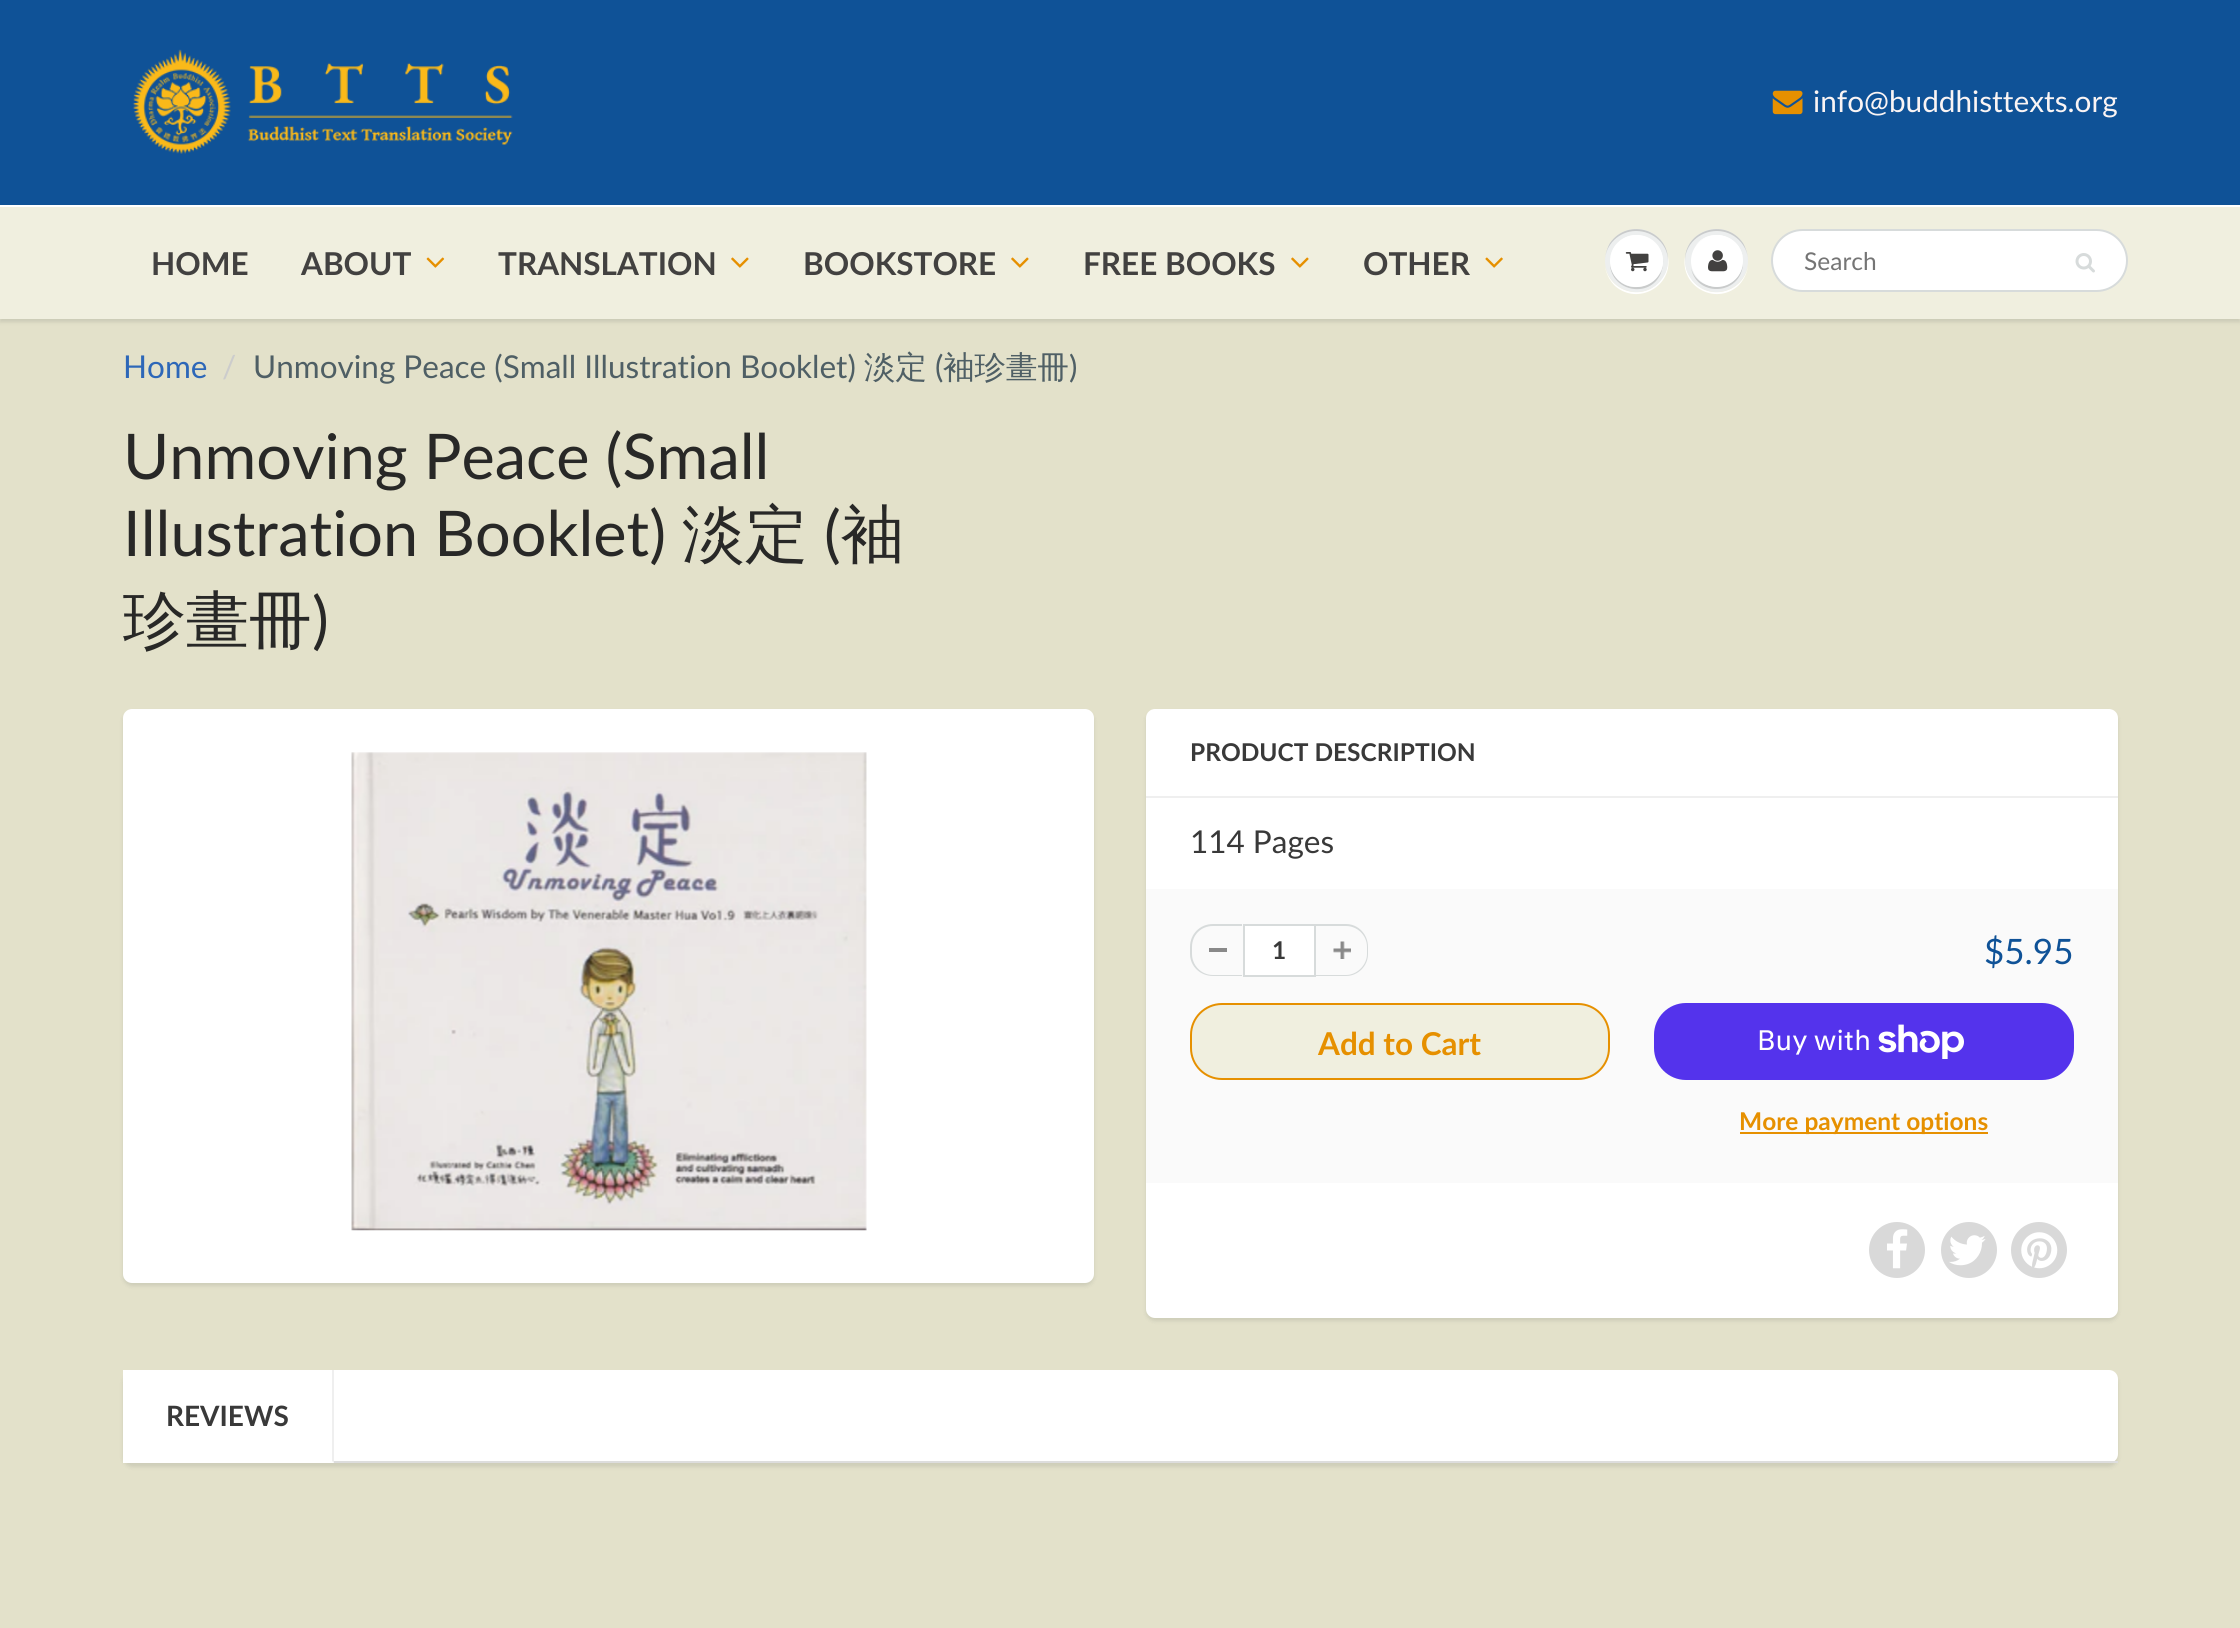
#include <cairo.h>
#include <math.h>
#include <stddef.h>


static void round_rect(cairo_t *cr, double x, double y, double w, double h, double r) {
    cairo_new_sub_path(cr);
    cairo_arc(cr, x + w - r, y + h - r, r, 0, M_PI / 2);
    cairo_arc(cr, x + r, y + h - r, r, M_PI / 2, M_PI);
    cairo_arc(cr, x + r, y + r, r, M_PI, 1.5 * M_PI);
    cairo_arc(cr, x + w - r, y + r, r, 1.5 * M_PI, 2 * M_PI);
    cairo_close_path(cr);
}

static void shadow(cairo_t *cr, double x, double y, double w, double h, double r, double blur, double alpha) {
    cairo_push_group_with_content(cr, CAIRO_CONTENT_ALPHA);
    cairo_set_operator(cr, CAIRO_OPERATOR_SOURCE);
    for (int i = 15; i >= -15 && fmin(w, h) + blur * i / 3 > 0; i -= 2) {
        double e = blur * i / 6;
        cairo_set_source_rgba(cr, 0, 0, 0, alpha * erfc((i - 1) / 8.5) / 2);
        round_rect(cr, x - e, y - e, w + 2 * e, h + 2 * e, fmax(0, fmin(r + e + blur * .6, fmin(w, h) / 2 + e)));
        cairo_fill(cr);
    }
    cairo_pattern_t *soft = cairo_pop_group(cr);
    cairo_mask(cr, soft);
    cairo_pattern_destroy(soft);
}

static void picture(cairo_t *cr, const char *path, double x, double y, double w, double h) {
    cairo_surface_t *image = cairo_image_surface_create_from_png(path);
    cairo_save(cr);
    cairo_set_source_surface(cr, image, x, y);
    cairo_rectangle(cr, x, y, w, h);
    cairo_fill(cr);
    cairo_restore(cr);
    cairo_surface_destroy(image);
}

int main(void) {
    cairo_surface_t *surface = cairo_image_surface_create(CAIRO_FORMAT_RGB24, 2240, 1628);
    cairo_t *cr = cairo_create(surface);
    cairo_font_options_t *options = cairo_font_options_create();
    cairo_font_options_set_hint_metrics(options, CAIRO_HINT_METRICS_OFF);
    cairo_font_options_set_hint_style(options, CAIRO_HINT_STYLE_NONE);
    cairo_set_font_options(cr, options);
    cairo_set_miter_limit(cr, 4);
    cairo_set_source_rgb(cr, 0.059, 0.322, 0.592);
    cairo_paint(cr);
    picture(cr, "img1.png", 132, 49, 381, 105);
    picture(cr, "img2.png", 1772, 90, 31, 25);
    cairo_select_font_face(cr, "Lato", CAIRO_FONT_SLANT_NORMAL, CAIRO_FONT_WEIGHT_NORMAL);
    cairo_set_font_size(cr, 29.75);
    cairo_set_source_rgb(cr, 0.98, 0.957, 0.957);
    cairo_move_to(cr, 1813, 112);
    cairo_show_text(cr, "info@buddhisttexts.org");
    cairo_set_source_rgb(cr, 0.89, 0.882, 0.792);
    cairo_rectangle(cr, 0, 319, 2240, 1309);
    cairo_fill(cr);
    cairo_set_source_rgb(cr, 0.043, 0.098, 0.11);
    shadow(cr, 0, 208, 2240, 114, 0, 2, 0.12);
    cairo_set_source_rgb(cr, 0.941, 0.937, 0.875);
    cairo_rectangle(cr, 0, 207, 2240, 112);
    cairo_fill(cr);
    cairo_set_source_rgb(cr, 1, 1, 1);
    cairo_rectangle(cr, 0, 205, 2240, 2);
    cairo_fill(cr);
    cairo_select_font_face(cr, "Lato", CAIRO_FONT_SLANT_NORMAL, CAIRO_FONT_WEIGHT_BOLD);
    cairo_set_font_size(cr, 31.5);
    cairo_set_source_rgb(cr, 0.259, 0.255, 0.251);
    cairo_move_to(cr, 151, 275);
    cairo_show_text(cr, "HOME");
    cairo_move_to(cr, 301, 275);
    cairo_show_text(cr, "ABOUT");
    picture(cr, "img3.png", 426, 257, 19, 11);
    cairo_move_to(cr, 498, 275);
    cairo_show_text(cr, "TRANSLATION");
    picture(cr, "img4.png", 731, 257, 18, 11);
    cairo_move_to(cr, 803, 275);
    cairo_show_text(cr, "BOOKSTORE");
    picture(cr, "img4.png", 1011, 257, 18, 11);
    cairo_move_to(cr, 1083, 275);
    cairo_show_text(cr, "FREE BOOKS");
    picture(cr, "img4.png", 1291, 257, 18, 11);
    cairo_move_to(cr, 1363, 275);
    cairo_show_text(cr, "OTHER");
    picture(cr, "img5.png", 1485, 257, 18, 11);
    cairo_set_source_rgb(cr, 1, 1, 1);
    cairo_new_path(cr);
    cairo_move_to(cr, 1605, 266);
    cairo_curve_to(cr, 1606, 274, 1610, 281, 1615, 286);
    cairo_curve_to(cr, 1638, 306, 1673, 286, 1668, 257);
    cairo_curve_to(cr, 1668, 265, 1667, 272, 1662, 278);
    cairo_curve_to(cr, 1647, 302, 1610, 294, 1605, 266);
    cairo_close_path(cr);
    cairo_fill(cr);
    cairo_set_source_rgb(cr, 0.929, 0.937, 0.937);
    cairo_arc(cr, 1636.5, 260.5, 31.5, 0, 2 * M_PI);
    cairo_fill(cr);
    cairo_set_source_rgb(cr, 0.788, 0.796, 0.796);
    cairo_new_path(cr);
    cairo_move_to(cr, 1636, 231);
    cairo_curve_to(cr, 1654, 231, 1668, 245, 1668, 261);
    cairo_curve_to(cr, 1669, 230, 1628, 217, 1610, 243);
    cairo_curve_to(cr, 1607, 248, 1605, 255, 1605, 261);
    cairo_curve_to(cr, 1605, 245, 1619, 231, 1636, 231);
    cairo_close_path(cr);
    cairo_fill(cr);
    cairo_new_path(cr);
    cairo_move_to(cr, 1610, 262);
    cairo_curve_to(cr, 1609, 291, 1650, 300, 1661, 273);
    cairo_curve_to(cr, 1663, 267, 1664, 260, 1662, 254);
    cairo_curve_to(cr, 1668, 279, 1637, 298, 1618, 280);
    cairo_curve_to(cr, 1613, 275, 1610, 268, 1610, 262);
    cairo_close_path(cr);
    cairo_fill(cr);
    cairo_set_source_rgb(cr, 1, 1, 1);
    round_rect(cr, 1610, 235, 53, 52, 26);
    cairo_fill(cr);
    cairo_new_path(cr);
    cairo_move_to(cr, 1636, 236);
    cairo_curve_to(cr, 1656, 236, 1668, 258, 1659, 275);
    cairo_curve_to(cr, 1675, 249, 1640, 221, 1618, 243);
    cairo_curve_to(cr, 1613, 248, 1610, 254, 1610, 262);
    cairo_curve_to(cr, 1610, 248, 1622, 236, 1636, 236);
    cairo_close_path(cr);
    cairo_fill(cr);
    picture(cr, "img6.png", 1625, 252, 24, 20);
    cairo_new_path(cr);
    cairo_move_to(cr, 1685, 257);
    cairo_curve_to(cr, 1680, 286, 1715, 306, 1738, 286);
    cairo_curve_to(cr, 1743, 281, 1747, 274, 1748, 266);
    cairo_curve_to(cr, 1743, 294, 1706, 302, 1691, 278);
    cairo_curve_to(cr, 1686, 272, 1685, 265, 1685, 257);
    cairo_close_path(cr);
    cairo_fill(cr);
    cairo_set_source_rgb(cr, 0.929, 0.937, 0.937);
    cairo_arc(cr, 1716.5, 260.5, 31.5, 0, 2 * M_PI);
    cairo_fill(cr);
    cairo_set_source_rgb(cr, 0.788, 0.796, 0.796);
    cairo_new_path(cr);
    cairo_move_to(cr, 1717, 231);
    cairo_curve_to(cr, 1734, 231, 1748, 245, 1748, 261);
    cairo_curve_to(cr, 1748, 255, 1746, 248, 1743, 243);
    cairo_curve_to(cr, 1725, 217, 1684, 230, 1685, 261);
    cairo_curve_to(cr, 1685, 245, 1699, 231, 1717, 231);
    cairo_close_path(cr);
    cairo_move_to(cr, 1691, 268);
    cairo_curve_to(cr, 1697, 299, 1744, 295, 1743, 261);
    cairo_curve_to(cr, 1742, 291, 1699, 296, 1691, 268);
    cairo_close_path(cr);
    cairo_fill(cr);
    cairo_set_source_rgb(cr, 1, 1, 1);
    cairo_arc(cr, 1717, 261, 26, 0, 2 * M_PI);
    cairo_fill(cr);
    cairo_new_path(cr);
    cairo_move_to(cr, 1717, 236);
    cairo_curve_to(cr, 1731, 236, 1743, 248, 1743, 262);
    cairo_curve_to(cr, 1744, 236, 1710, 225, 1695, 246);
    cairo_curve_to(cr, 1700, 240, 1708, 236, 1717, 236);
    cairo_close_path(cr);
    cairo_fill(cr);
    picture(cr, "img7.png", 1708, 250, 20, 22);
    round_rect(cr, 1772, 230, 355, 61, 30.5);
    cairo_fill_preserve(cr);
    cairo_set_source_rgb(cr, 0.843, 0.859, 0.859);
    cairo_stroke(cr);
    cairo_select_font_face(cr, "Lato", CAIRO_FONT_SLANT_NORMAL, CAIRO_FONT_WEIGHT_NORMAL);
    cairo_set_font_size(cr, 24.5);
    cairo_set_source_rgb(cr, 0.459, 0.459, 0.459);
    cairo_move_to(cr, 1804, 270);
    cairo_show_text(cr, "Search");
    picture(cr, "img8.png", 2075, 253, 20, 20);
    cairo_set_font_size(cr, 31.5);
    cairo_set_source_rgb(cr, 0.176, 0.404, 0.722);
    cairo_move_to(cr, 123, 378);
    cairo_show_text(cr, "Home");
    cairo_set_source_rgb(cr, 0.8, 0.8, 0.8);
    cairo_move_to(cr, 222, 378);
    cairo_show_text(cr, "/");
    cairo_set_source_rgb(cr, 0.31, 0.373, 0.396);
    cairo_move_to(cr, 253, 378);
    cairo_show_text(cr, "Unmoving Peace (Small Illustration Booklet)");
    cairo_select_font_face(cr, "WenQuanYi Zen Hei Medium", CAIRO_FONT_SLANT_NORMAL, CAIRO_FONT_WEIGHT_NORMAL);
    cairo_move_to(cr, 864, 378);
    cairo_show_text(cr, "淡定");
    cairo_select_font_face(cr, "Lato", CAIRO_FONT_SLANT_NORMAL, CAIRO_FONT_WEIGHT_NORMAL);
    cairo_move_to(cr, 935, 378);
    cairo_show_text(cr, "(");
    cairo_select_font_face(cr, "WenQuanYi Zen Hei Medium", CAIRO_FONT_SLANT_NORMAL, CAIRO_FONT_WEIGHT_NORMAL);
    cairo_move_to(cr, 943, 378);
    cairo_show_text(cr, "袖珍畫冊");
    cairo_select_font_face(cr, "Lato", CAIRO_FONT_SLANT_NORMAL, CAIRO_FONT_WEIGHT_NORMAL);
    cairo_move_to(cr, 1069, 378);
    cairo_show_text(cr, ")");
    cairo_set_font_size(cr, 63);
    cairo_set_source_rgb(cr, 0.157, 0.157, 0.153);
    cairo_move_to(cr, 123, 479);
    cairo_show_text(cr, "Unmoving Peace (Small");
    cairo_move_to(cr, 123, 556);
    cairo_show_text(cr, "Illustration Booklet)");
    cairo_select_font_face(cr, "WenQuanYi Zen Hei Medium", CAIRO_FONT_SLANT_NORMAL, CAIRO_FONT_WEIGHT_NORMAL);
    cairo_move_to(cr, 682, 556);
    cairo_show_text(cr, "淡定");
    cairo_select_font_face(cr, "Lato", CAIRO_FONT_SLANT_NORMAL, CAIRO_FONT_WEIGHT_NORMAL);
    cairo_move_to(cr, 824, 556);
    cairo_show_text(cr, "(");
    cairo_select_font_face(cr, "WenQuanYi Zen Hei Medium", CAIRO_FONT_SLANT_NORMAL, CAIRO_FONT_WEIGHT_NORMAL);
    cairo_move_to(cr, 841, 556);
    cairo_show_text(cr, "袖");
    cairo_move_to(cr, 123, 642);
    cairo_show_text(cr, "珍畫冊");
    cairo_select_font_face(cr, "Lato", CAIRO_FONT_SLANT_NORMAL, CAIRO_FONT_WEIGHT_NORMAL);
    cairo_move_to(cr, 312, 642);
    cairo_show_text(cr, ")");
    cairo_set_source_rgb(cr, 0.043, 0.098, 0.11);
    shadow(cr, 123, 712, 971, 574, 9, 2, 0.1);
    cairo_set_source_rgb(cr, 1, 1, 1);
    round_rect(cr, 123, 709, 971, 574, 9);
    cairo_fill(cr);
    picture(cr, "img9.png", 351, 752, 516, 479);
    cairo_set_source_rgb(cr, 0.043, 0.098, 0.11);
    shadow(cr, 1146, 712, 972, 609, 9, 2, 0.1);
    cairo_set_source_rgb(cr, 1, 1, 1);
    round_rect(cr, 1146, 709, 972, 609, 9);
    cairo_fill(cr);
    cairo_set_source_rgb(cr, 0.937, 0.937, 0.937);
    cairo_rectangle(cr, 1146, 796, 972, 2);
    cairo_fill(cr);
    cairo_select_font_face(cr, "Lato", CAIRO_FONT_SLANT_NORMAL, CAIRO_FONT_WEIGHT_BOLD);
    cairo_set_font_size(cr, 24.5);
    cairo_set_source_rgb(cr, 0.224, 0.224, 0.224);
    cairo_move_to(cr, 1190, 761);
    cairo_show_text(cr, "PRODUCT DESCRIPTION");
    cairo_select_font_face(cr, "Lato", CAIRO_FONT_SLANT_NORMAL, CAIRO_FONT_WEIGHT_NORMAL);
    cairo_set_font_size(cr, 31.5);
    cairo_move_to(cr, 1190, 853);
    cairo_show_text(cr, "114 Pages");
    cairo_set_source_rgb(cr, 0.98, 0.98, 0.98);
    cairo_rectangle(cr, 1146, 889, 972, 294);
    cairo_fill(cr);
    cairo_set_source_rgb(cr, 0.537, 0.537, 0.537);
    cairo_rectangle(cr, 1209, 948, 18, 4);
    cairo_fill(cr);
    cairo_set_source_rgb(cr, 0.843, 0.859, 0.859);
    cairo_set_fill_rule(cr, CAIRO_FILL_RULE_EVEN_ODD);
    cairo_new_path(cr);
    cairo_move_to(cr, 1213, 924);
    cairo_line_to(cr, 1242, 924);
    cairo_line_to(cr, 1242, 976);
    cairo_line_to(cr, 1213, 976);
    cairo_curve_to(cr, 1200, 976, 1190, 966, 1190, 954);
    cairo_line_to(cr, 1190, 947);
    cairo_curve_to(cr, 1190, 934, 1200, 924, 1213, 924);
    cairo_close_path(cr);
    cairo_move_to(cr, 1213, 926);
    cairo_line_to(cr, 1242, 926);
    cairo_line_to(cr, 1242, 975);
    cairo_line_to(cr, 1213, 975);
    cairo_curve_to(cr, 1201, 975, 1192, 965, 1192, 954);
    cairo_line_to(cr, 1192, 947);
    cairo_curve_to(cr, 1192, 935, 1201, 926, 1213, 926);
    cairo_close_path(cr);
    cairo_fill(cr);
    cairo_set_source_rgb(cr, 1, 1, 1);
    cairo_rectangle(cr, 1244, 925, 71, 51);
    cairo_fill_preserve(cr);
    cairo_set_source_rgb(cr, 0.843, 0.859, 0.859);
    cairo_stroke(cr);
    cairo_select_font_face(cr, "Lato", CAIRO_FONT_SLANT_NORMAL, CAIRO_FONT_WEIGHT_BOLD);
    cairo_set_font_size(cr, 24.5);
    cairo_set_source_rgb(cr, 0.224, 0.224, 0.224);
    cairo_move_to(cr, 1272, 959);
    cairo_show_text(cr, "1");
    picture(cr, "img10.png", 1333, 941, 18, 18);
    cairo_set_source_rgb(cr, 0.843, 0.859, 0.859);
    cairo_new_path(cr);
    cairo_move_to(cr, 1316, 924);
    cairo_line_to(cr, 1346, 924);
    cairo_curve_to(cr, 1358, 924, 1368, 934, 1368, 947);
    cairo_line_to(cr, 1368, 954);
    cairo_curve_to(cr, 1368, 966, 1358, 976, 1346, 976);
    cairo_line_to(cr, 1316, 976);
    cairo_close_path(cr);
    cairo_move_to(cr, 1316, 926);
    cairo_line_to(cr, 1346, 926);
    cairo_curve_to(cr, 1357, 926, 1367, 935, 1367, 947);
    cairo_line_to(cr, 1367, 954);
    cairo_curve_to(cr, 1367, 965, 1357, 975, 1346, 975);
    cairo_line_to(cr, 1316, 975);
    cairo_close_path(cr);
    cairo_fill(cr);
    cairo_select_font_face(cr, "Lato", CAIRO_FONT_SLANT_NORMAL, CAIRO_FONT_WEIGHT_NORMAL);
    cairo_set_font_size(cr, 35);
    cairo_set_source_rgb(cr, 0.059, 0.322, 0.592);
    cairo_move_to(cr, 1984, 964);
    cairo_show_text(cr, "$5.95");
    cairo_set_source_rgb(cr, 0.941, 0.937, 0.875);
    round_rect(cr, 1191, 1004, 418, 75, 31);
    cairo_fill_preserve(cr);
    cairo_set_source_rgb(cr, 0.902, 0.565, 0);
    cairo_stroke(cr);
    cairo_select_font_face(cr, "Lato", CAIRO_FONT_SLANT_NORMAL, CAIRO_FONT_WEIGHT_BOLD);
    cairo_set_font_size(cr, 31.5);
    cairo_move_to(cr, 1318, 1055);
    cairo_show_text(cr, "Add to Cart");
    cairo_set_source_rgb(cr, 0.329, 0.2, 0.922);
    round_rect(cr, 1654, 1003, 420, 77, 32);
    cairo_fill(cr);
    cairo_select_font_face(cr, "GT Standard", CAIRO_FONT_SLANT_NORMAL, CAIRO_FONT_WEIGHT_NORMAL);
    cairo_set_font_size(cr, 28);
    cairo_set_source_rgb(cr, 1, 1, 1);
    cairo_move_to(cr, 1757, 1050);
    cairo_show_text(cr, "Buy with");
    picture(cr, "img11.png", 1878, 1024, 86, 35);
    cairo_set_source_rgb(cr, 0.902, 0.565, 0);
    cairo_rectangle(cr, 1740, 1132, 248, 2);
    cairo_fill(cr);
    cairo_select_font_face(cr, "Lato", CAIRO_FONT_SLANT_NORMAL, CAIRO_FONT_WEIGHT_BOLD);
    cairo_set_font_size(cr, 24.5);
    cairo_move_to(cr, 1739, 1130);
    cairo_show_text(cr, "More payment options");
    cairo_set_source_rgb(cr, 0.851, 0.851, 0.851);
    cairo_new_path(cr);
    cairo_arc(cr, 1897, 1250, 28, 0, 2 * M_PI);
    cairo_fill(cr);
    picture(cr, "img12.png", 1887, 1229, 21, 40);
    cairo_arc(cr, 1969, 1250, 28, 0, 2 * M_PI);
    cairo_fill(cr);
    picture(cr, "img13.png", 1949, 1235, 37, 31);
    cairo_arc(cr, 2039, 1250, 28, 0, 2 * M_PI);
    cairo_fill(cr);
    picture(cr, "img14.png", 2021, 1232, 37, 37);
    cairo_set_source_rgb(cr, 0.043, 0.098, 0.11);
    shadow(cr, 123, 1374, 1995, 93, 9, 2, 0.1);
    cairo_set_source_rgb(cr, 1, 1, 1);
    round_rect(cr, 123, 1370, 1995, 93, 9);
    cairo_fill(cr);
    cairo_set_source_rgb(cr, 0.867, 0.867, 0.867);
    cairo_rectangle(cr, 334, 1461, 1784, 2);
    cairo_fill(cr);
    cairo_set_source_rgb(cr, 1, 1, 1);
    cairo_rectangle(cr, 123, 1370, 9, 93);
    cairo_fill(cr);
    cairo_set_source_rgb(cr, 0.937, 0.937, 0.937);
    cairo_set_fill_rule(cr, CAIRO_FILL_RULE_WINDING);
    cairo_new_path(cr);
    cairo_move_to(cr, 334, 1370);
    cairo_line_to(cr, 334, 1463);
    cairo_line_to(cr, 332, 1461);
    cairo_line_to(cr, 332, 1370);
    cairo_close_path(cr);
    cairo_fill(cr);
    cairo_set_font_size(cr, 28);
    cairo_set_source_rgb(cr, 0.224, 0.224, 0.224);
    cairo_move_to(cr, 166, 1426);
    cairo_show_text(cr, "REVIEWS");
    cairo_surface_write_to_png(surface, "page.png");
    cairo_font_options_destroy(options);
    cairo_destroy(cr);
    cairo_surface_destroy(surface);
    return 0;
}
